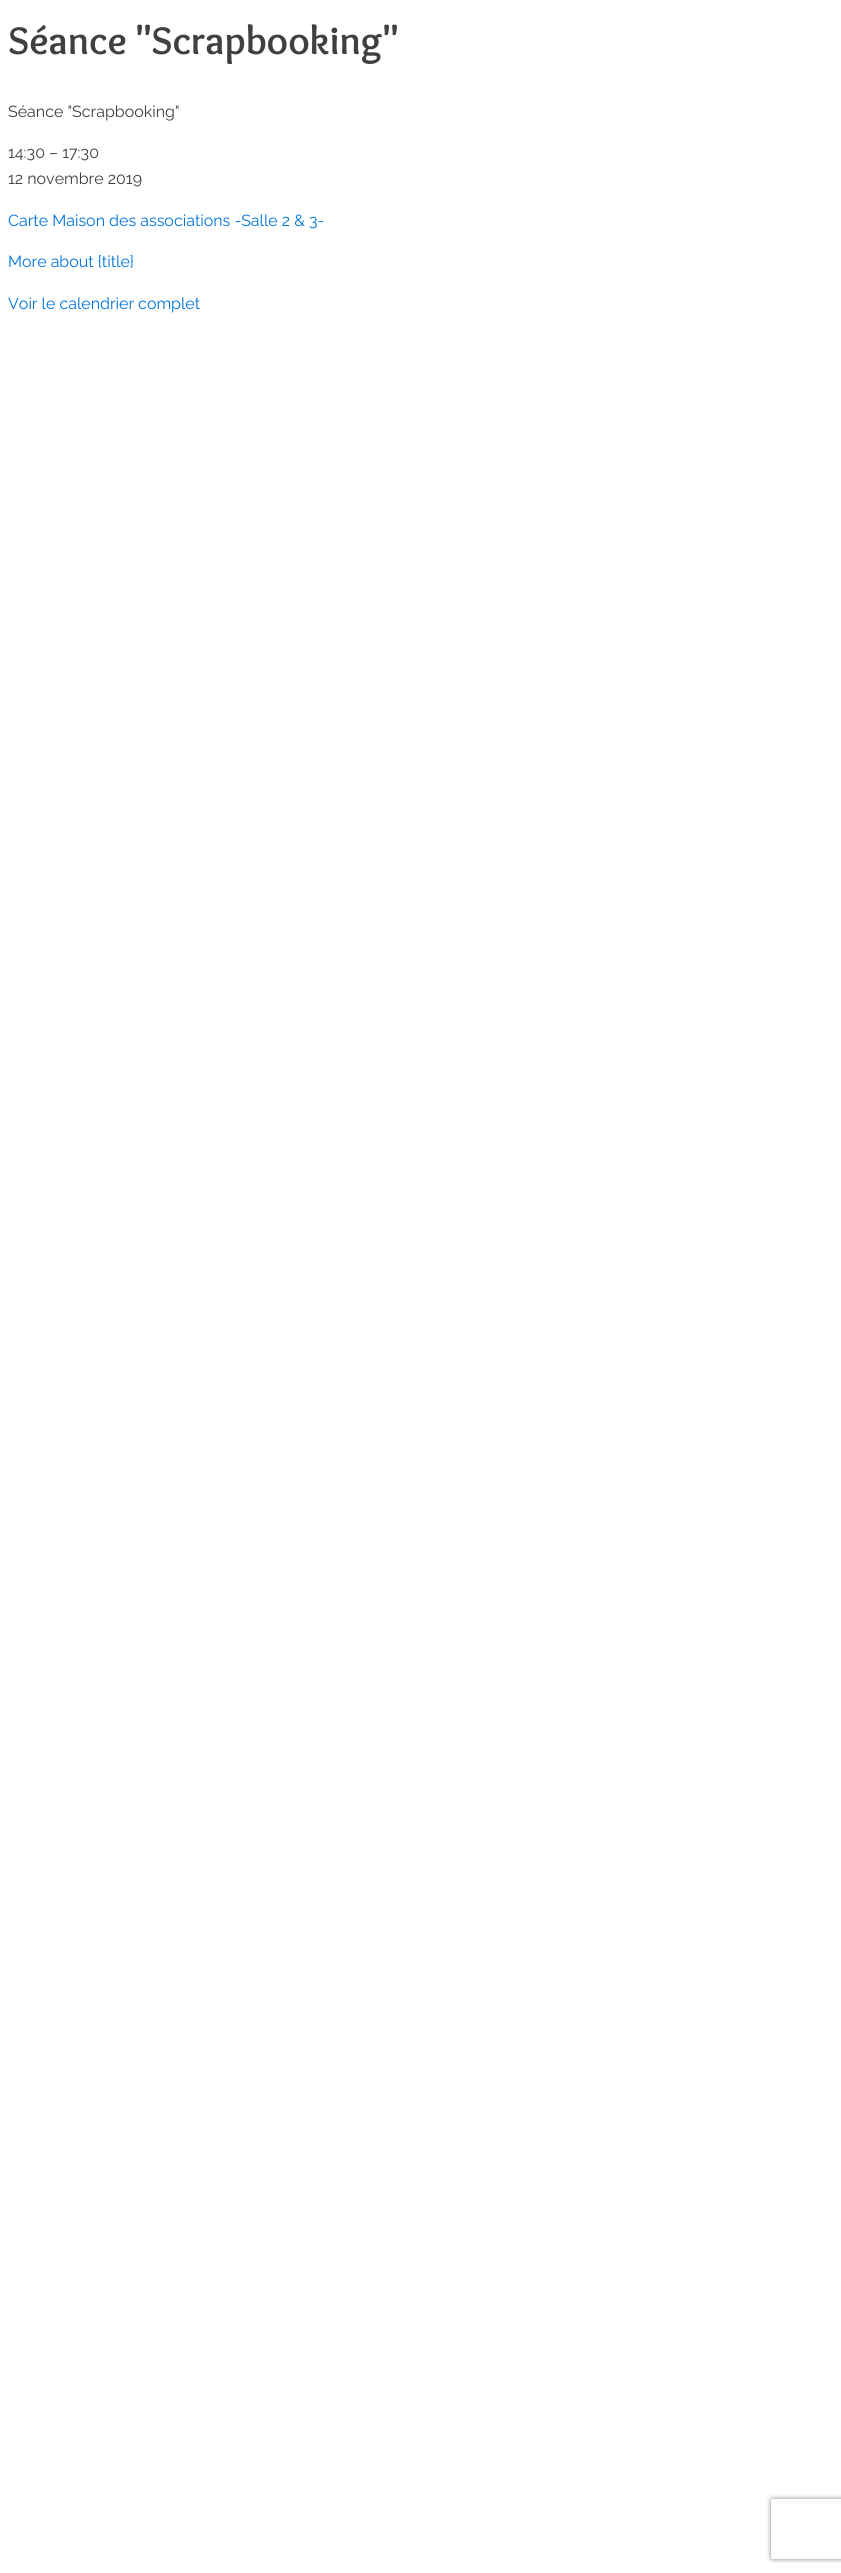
#include <cairo.h>
#include <math.h>
#include <stddef.h>


static void round_rect(cairo_t *cr, double x, double y, double w, double h, double r) {
    cairo_new_sub_path(cr);
    cairo_arc(cr, x + w - r, y + h - r, r, 0, M_PI / 2);
    cairo_arc(cr, x + r, y + h - r, r, M_PI / 2, M_PI);
    cairo_arc(cr, x + r, y + r, r, M_PI, 1.5 * M_PI);
    cairo_arc(cr, x + w - r, y + r, r, 1.5 * M_PI, 2 * M_PI);
    cairo_close_path(cr);
}

static void shadow(cairo_t *cr, double x, double y, double w, double h, double r, double blur, double alpha) {
    cairo_push_group_with_content(cr, CAIRO_CONTENT_ALPHA);
    cairo_set_operator(cr, CAIRO_OPERATOR_SOURCE);
    for (int i = 15; i >= -15 && fmin(w, h) + blur * i / 3 > 0; i -= 2) {
        double e = blur * i / 6;
        cairo_set_source_rgba(cr, 0, 0, 0, alpha * erfc((i - 1) / 8.5) / 2);
        round_rect(cr, x - e, y - e, w + 2 * e, h + 2 * e, fmax(0, fmin(r + e + blur * .6, fmin(w, h) / 2 + e)));
        cairo_fill(cr);
    }
    cairo_pattern_t *soft = cairo_pop_group(cr);
    cairo_mask(cr, soft);
    cairo_pattern_destroy(soft);
}

int main(void) {
    cairo_surface_t *surface = cairo_image_surface_create(CAIRO_FORMAT_RGB24, 841, 2573);
    cairo_t *cr = cairo_create(surface);
    cairo_font_options_t *options = cairo_font_options_create();
    cairo_font_options_set_hint_metrics(options, CAIRO_HINT_METRICS_OFF);
    cairo_font_options_set_hint_style(options, CAIRO_HINT_STYLE_NONE);
    cairo_set_font_options(cr, options);
    cairo_set_miter_limit(cr, 4);
    cairo_set_source_rgb(cr, 1, 1, 1);
    cairo_paint(cr);
    cairo_select_font_face(cr, "Overlock", CAIRO_FONT_SLANT_NORMAL, CAIRO_FONT_WEIGHT_BOLD);
    cairo_set_font_size(cr, 40);
    cairo_set_source_rgb(cr, 0.251, 0.251, 0.251);
    cairo_move_to(cr, 8, 54);
    cairo_show_text(cr, "Séance \"Scrapbooking\"");
    cairo_select_font_face(cr, "Raleway", CAIRO_FONT_SLANT_NORMAL, CAIRO_FONT_WEIGHT_NORMAL);
    cairo_set_font_size(cr, 16);
    cairo_move_to(cr, 8, 117);
    cairo_show_text(cr, "Séance \"Scrapbooking\"");
    cairo_move_to(cr, 8, 158);
    cairo_show_text(cr, "14:30 – 17:30");
    cairo_move_to(cr, 8, 184);
    cairo_show_text(cr, "12 novembre 2019");
    cairo_set_source_rgb(cr, 0, 0.455, 0.859);
    cairo_move_to(cr, 8, 226);
    cairo_show_text(cr, "Carte Maison des associations -Salle 2 & 3-");
    cairo_move_to(cr, 8, 267);
    cairo_show_text(cr, "More about {title}");
    cairo_move_to(cr, 8, 309);
    cairo_show_text(cr, "Voir le calendrier complet");
    cairo_save(cr);
    cairo_set_fill_rule(cr, CAIRO_FILL_RULE_EVEN_ODD);
    cairo_new_path(cr);
    cairo_move_to(cr, 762, 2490);
    cairo_line_to(cr, 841, 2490);
    cairo_line_to(cr, 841, 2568);
    cairo_line_to(cr, 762, 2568);
    cairo_close_path(cr);
    cairo_move_to(cr, 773, 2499);
    cairo_line_to(cr, 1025, 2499);
    cairo_curve_to(cr, 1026, 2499, 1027, 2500, 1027, 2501);
    cairo_line_to(cr, 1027, 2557);
    cairo_curve_to(cr, 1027, 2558, 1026, 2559, 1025, 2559);
    cairo_line_to(cr, 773, 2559);
    cairo_curve_to(cr, 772, 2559, 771, 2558, 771, 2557);
    cairo_line_to(cr, 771, 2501);
    cairo_curve_to(cr, 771, 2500, 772, 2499, 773, 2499);
    cairo_close_path(cr);
    cairo_clip(cr);
    cairo_set_source_rgb(cr, 0.502, 0.502, 0.502);
    shadow(cr, 771, 2499, 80, 60, 2, 2.5, 1);
    cairo_restore(cr);
    cairo_surface_write_to_png(surface, "page.png");
    cairo_font_options_destroy(options);
    cairo_destroy(cr);
    cairo_surface_destroy(surface);
    return 0;
}
